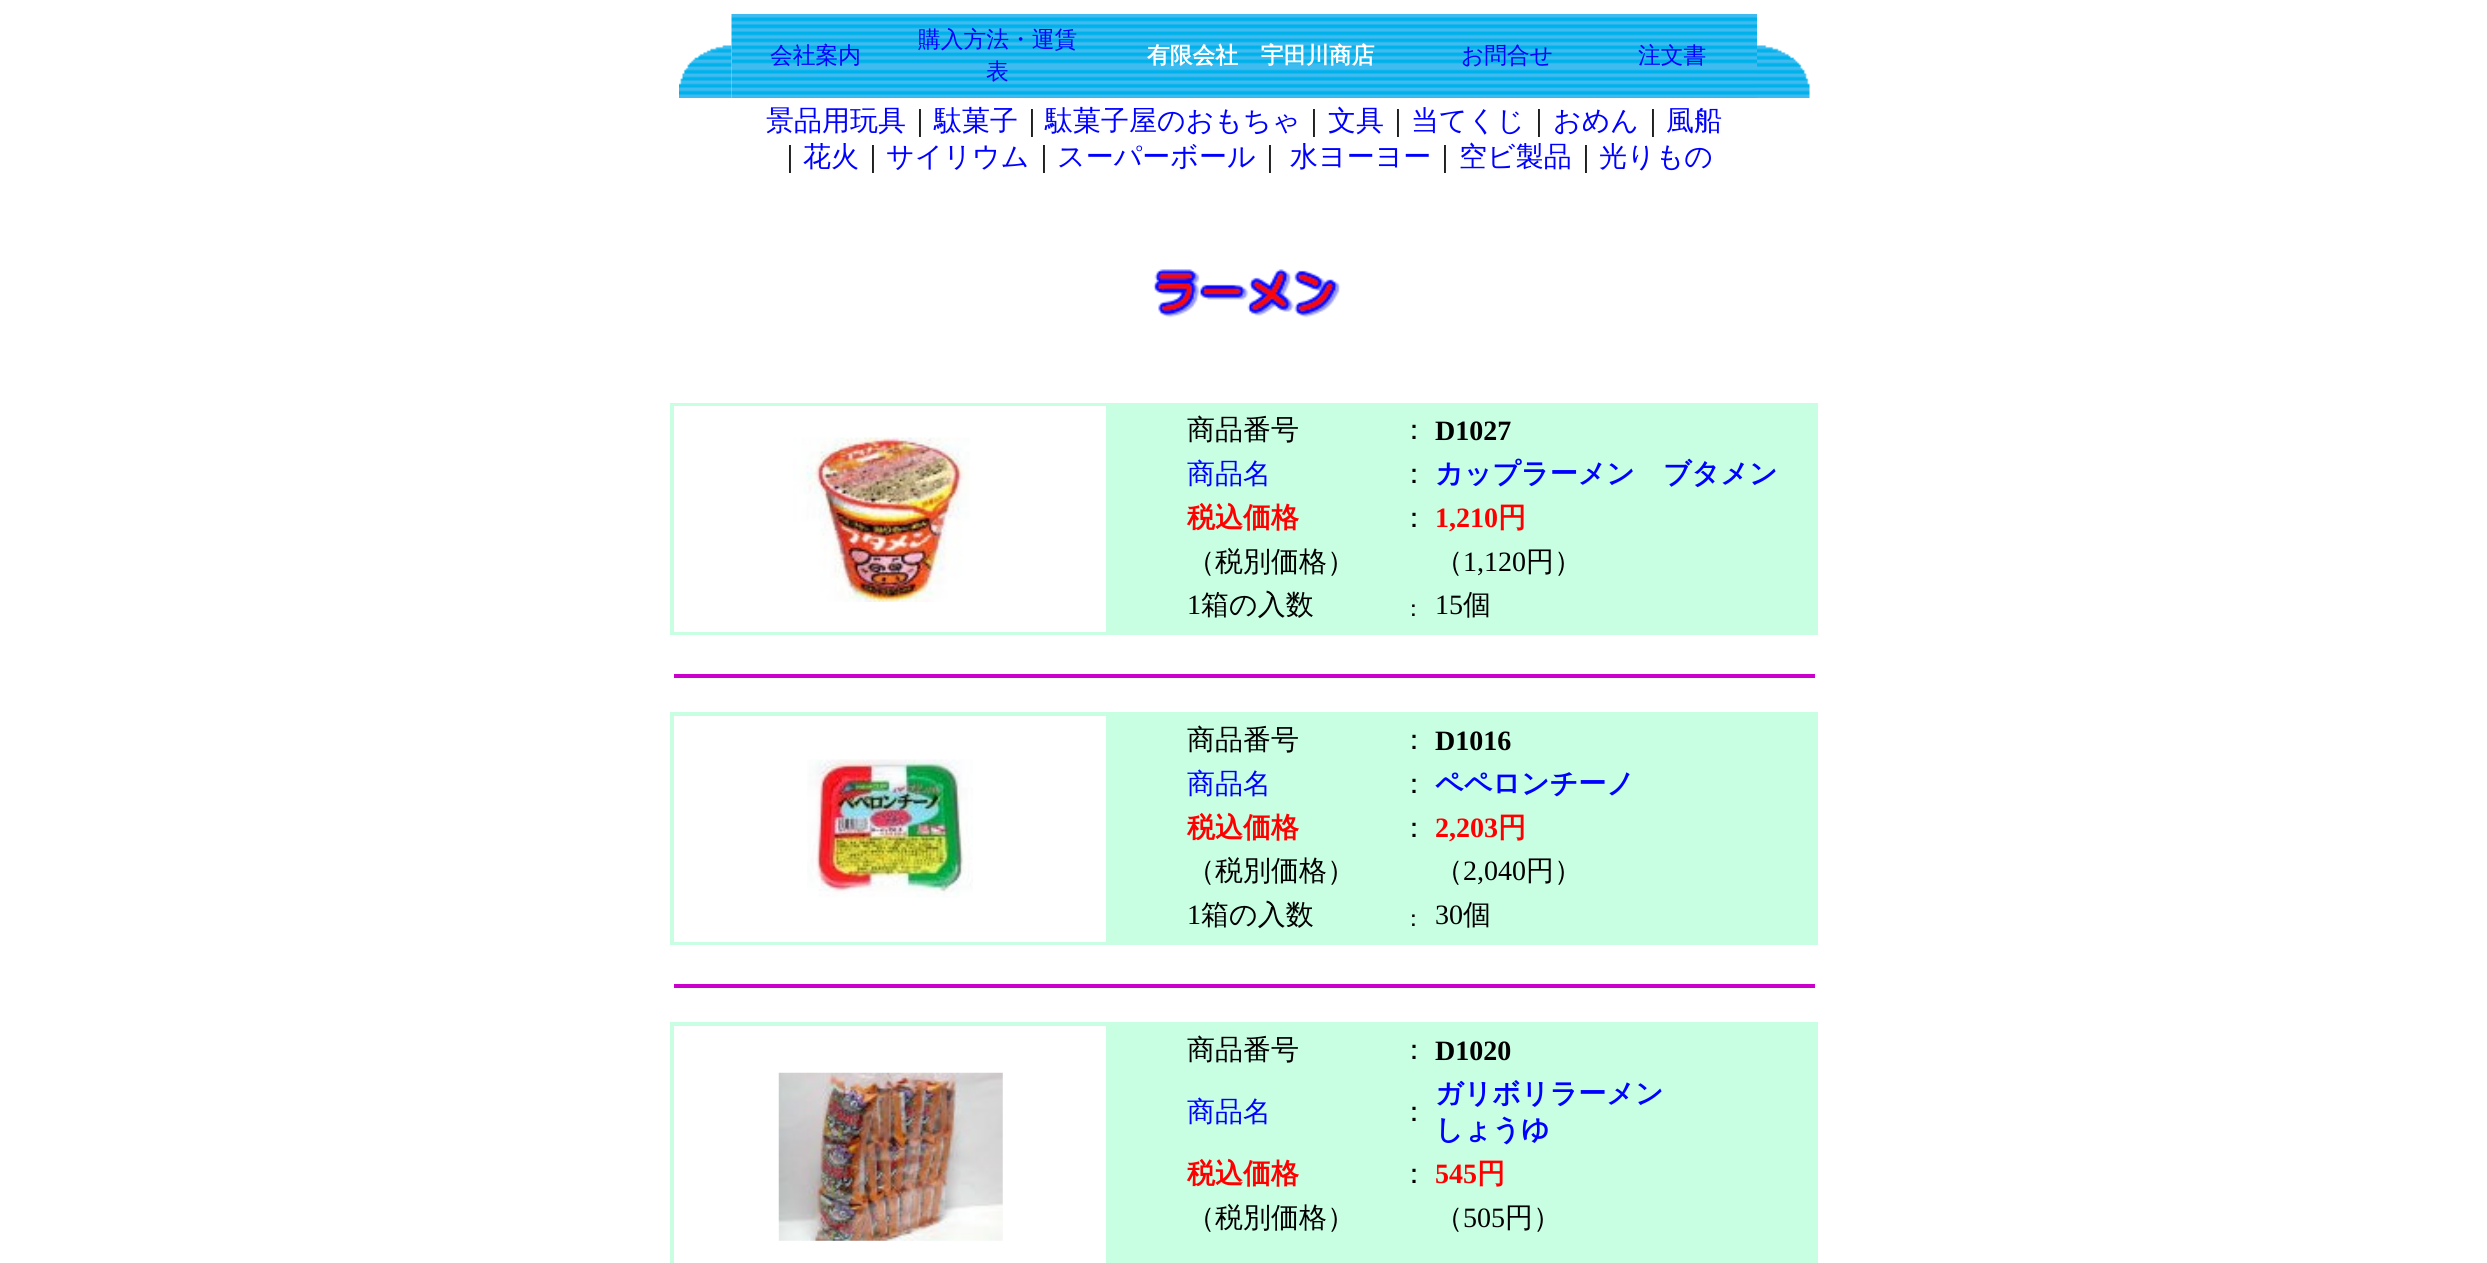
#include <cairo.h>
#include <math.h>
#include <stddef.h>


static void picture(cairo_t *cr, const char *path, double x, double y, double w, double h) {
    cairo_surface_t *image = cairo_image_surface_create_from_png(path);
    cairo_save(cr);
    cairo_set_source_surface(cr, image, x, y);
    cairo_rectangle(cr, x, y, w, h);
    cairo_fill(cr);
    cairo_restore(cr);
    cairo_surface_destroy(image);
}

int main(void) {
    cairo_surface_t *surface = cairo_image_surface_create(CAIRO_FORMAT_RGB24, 2487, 1263);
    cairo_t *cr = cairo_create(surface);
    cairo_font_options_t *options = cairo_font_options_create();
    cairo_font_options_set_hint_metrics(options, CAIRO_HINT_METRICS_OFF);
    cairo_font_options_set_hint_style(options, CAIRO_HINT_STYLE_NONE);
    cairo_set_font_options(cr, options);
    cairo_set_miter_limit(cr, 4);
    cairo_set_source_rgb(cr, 1, 1, 1);
    cairo_paint(cr);
    picture(cr, "img2.png", 731, 14, 1026, 84);
    picture(cr, "img1.png", 679, 45, 53, 53);
    cairo_select_font_face(cr, "WenQuanYi Zen Hei Medium", CAIRO_FONT_SLANT_NORMAL, CAIRO_FONT_WEIGHT_NORMAL);
    cairo_set_font_size(cr, 22.75);
    cairo_set_source_rgb(cr, 0, 0, 1);
    cairo_move_to(cr, 770, 63);
    cairo_show_text(cr, "会社案内");
    cairo_move_to(cr, 918, 47);
    cairo_show_text(cr, "購入方法・運賃");
    cairo_move_to(cr, 986, 79);
    cairo_show_text(cr, "表");
    cairo_select_font_face(cr, "WenQuanYi Zen Hei", CAIRO_FONT_SLANT_NORMAL, CAIRO_FONT_WEIGHT_BOLD);
    cairo_set_source_rgb(cr, 1, 1, 1);
    cairo_move_to(cr, 1147, 63);
    cairo_show_text(cr, "有限会社　宇田川商店");
    cairo_select_font_face(cr, "WenQuanYi Zen Hei Medium", CAIRO_FONT_SLANT_NORMAL, CAIRO_FONT_WEIGHT_NORMAL);
    cairo_set_source_rgb(cr, 0, 0, 1);
    cairo_move_to(cr, 1461, 63);
    cairo_show_text(cr, "お問合せ");
    cairo_move_to(cr, 1638, 63);
    cairo_show_text(cr, "注文書");
    picture(cr, "img3.png", 1757, 45, 53, 53);
    cairo_set_font_size(cr, 28);
    cairo_move_to(cr, 766, 130);
    cairo_show_text(cr, "景品用玩具");
    cairo_set_source_rgb(cr, 0, 0, 0);
    cairo_move_to(cr, 906, 130);
    cairo_show_text(cr, "｜");
    cairo_set_source_rgb(cr, 0, 0, 1);
    cairo_move_to(cr, 934, 130);
    cairo_show_text(cr, "駄菓子");
    cairo_set_source_rgb(cr, 0, 0, 0);
    cairo_move_to(cr, 1018, 130);
    cairo_show_text(cr, "｜");
    cairo_set_source_rgb(cr, 0, 0, 1);
    cairo_move_to(cr, 1045, 130);
    cairo_show_text(cr, "駄菓子屋のおもちゃ");
    cairo_set_source_rgb(cr, 0, 0, 0);
    cairo_move_to(cr, 1300, 130);
    cairo_show_text(cr, "｜");
    cairo_set_source_rgb(cr, 0, 0, 1);
    cairo_move_to(cr, 1328, 130);
    cairo_show_text(cr, "文具");
    cairo_set_source_rgb(cr, 0, 0, 0);
    cairo_move_to(cr, 1384, 130);
    cairo_show_text(cr, "｜");
    cairo_set_source_rgb(cr, 0, 0, 1);
    cairo_move_to(cr, 1411, 130);
    cairo_show_text(cr, "当てくじ");
    cairo_set_source_rgb(cr, 0, 0, 0);
    cairo_move_to(cr, 1525, 130);
    cairo_show_text(cr, "｜");
    cairo_set_source_rgb(cr, 0, 0, 1);
    cairo_move_to(cr, 1553, 130);
    cairo_show_text(cr, "おめん");
    cairo_set_source_rgb(cr, 0, 0, 0);
    cairo_move_to(cr, 1639, 130);
    cairo_show_text(cr, "｜");
    cairo_set_source_rgb(cr, 0, 0, 1);
    cairo_move_to(cr, 1666, 130);
    cairo_show_text(cr, "風船");
    cairo_set_source_rgb(cr, 0, 0, 0);
    cairo_move_to(cr, 776, 166);
    cairo_show_text(cr, "｜");
    cairo_set_source_rgb(cr, 0, 0, 1);
    cairo_move_to(cr, 803, 166);
    cairo_show_text(cr, "花火");
    cairo_set_source_rgb(cr, 0, 0, 0);
    cairo_move_to(cr, 859, 166);
    cairo_show_text(cr, "｜");
    cairo_set_source_rgb(cr, 0, 0, 1);
    cairo_move_to(cr, 886, 166);
    cairo_show_text(cr, "サイリウム");
    cairo_set_source_rgb(cr, 0, 0, 0);
    cairo_move_to(cr, 1030, 166);
    cairo_show_text(cr, "｜");
    cairo_set_source_rgb(cr, 0, 0, 1);
    cairo_move_to(cr, 1057, 166);
    cairo_show_text(cr, "スーパーボール");
    cairo_set_source_rgb(cr, 0, 0, 0);
    cairo_move_to(cr, 1256, 166);
    cairo_show_text(cr, "｜");
    cairo_set_source_rgb(cr, 0, 0, 1);
    cairo_move_to(cr, 1290, 166);
    cairo_show_text(cr, "水ヨーヨー");
    cairo_set_source_rgb(cr, 0, 0, 0);
    cairo_move_to(cr, 1431, 166);
    cairo_show_text(cr, "｜");
    cairo_set_source_rgb(cr, 0, 0, 1);
    cairo_move_to(cr, 1459, 166);
    cairo_show_text(cr, "空ビ製品");
    cairo_set_source_rgb(cr, 0, 0, 0);
    cairo_move_to(cr, 1572, 166);
    cairo_show_text(cr, "｜");
    cairo_set_source_rgb(cr, 0, 0, 1);
    cairo_move_to(cr, 1599, 166);
    cairo_show_text(cr, "光りもの");
    picture(cr, "img4.png", 1153, 269, 188, 49);
    cairo_set_source_rgb(cr, 0.784, 1, 0.89);
    cairo_rectangle(cr, 670, 403, 1148, 232);
    cairo_fill(cr);
    cairo_set_source_rgb(cr, 1, 1, 1);
    cairo_rectangle(cr, 674, 406, 432, 226);
    cairo_fill(cr);
    picture(cr, "img5.png", 793, 437, 177, 165);
    cairo_set_source_rgb(cr, 0, 0, 0);
    cairo_move_to(cr, 1187, 439);
    cairo_show_text(cr, "商品番号");
    cairo_move_to(cr, 1400, 439);
    cairo_show_text(cr, "：");
    cairo_select_font_face(cr, "Liberation Serif", CAIRO_FONT_SLANT_NORMAL, CAIRO_FONT_WEIGHT_BOLD);
    cairo_move_to(cr, 1435, 440);
    cairo_show_text(cr, "D1027");
    cairo_select_font_face(cr, "WenQuanYi Zen Hei Medium", CAIRO_FONT_SLANT_NORMAL, CAIRO_FONT_WEIGHT_NORMAL);
    cairo_set_source_rgb(cr, 0, 0, 1);
    cairo_move_to(cr, 1187, 483);
    cairo_show_text(cr, "商品名");
    cairo_set_source_rgb(cr, 0, 0, 0);
    cairo_move_to(cr, 1400, 483);
    cairo_show_text(cr, "：");
    cairo_select_font_face(cr, "WenQuanYi Zen Hei", CAIRO_FONT_SLANT_NORMAL, CAIRO_FONT_WEIGHT_BOLD);
    cairo_set_source_rgb(cr, 0, 0, 1);
    cairo_move_to(cr, 1435, 483);
    cairo_show_text(cr, "カップラーメン　ブタメン");
    cairo_set_source_rgb(cr, 1, 0, 0);
    cairo_move_to(cr, 1187, 527);
    cairo_show_text(cr, "税込価格");
    cairo_select_font_face(cr, "WenQuanYi Zen Hei Medium", CAIRO_FONT_SLANT_NORMAL, CAIRO_FONT_WEIGHT_NORMAL);
    cairo_set_source_rgb(cr, 0, 0, 0);
    cairo_move_to(cr, 1400, 527);
    cairo_show_text(cr, "：");
    cairo_select_font_face(cr, "Liberation Serif", CAIRO_FONT_SLANT_NORMAL, CAIRO_FONT_WEIGHT_BOLD);
    cairo_set_source_rgb(cr, 1, 0, 0);
    cairo_move_to(cr, 1435, 527);
    cairo_show_text(cr, "1,210");
    cairo_select_font_face(cr, "WenQuanYi Zen Hei", CAIRO_FONT_SLANT_NORMAL, CAIRO_FONT_WEIGHT_BOLD);
    cairo_move_to(cr, 1498, 527);
    cairo_show_text(cr, "円");
    cairo_select_font_face(cr, "WenQuanYi Zen Hei Medium", CAIRO_FONT_SLANT_NORMAL, CAIRO_FONT_WEIGHT_NORMAL);
    cairo_set_source_rgb(cr, 0, 0, 0);
    cairo_move_to(cr, 1187, 571);
    cairo_show_text(cr, "（税別価格）");
    cairo_move_to(cr, 1435, 571);
    cairo_show_text(cr, "（");
    cairo_select_font_face(cr, "Liberation Serif", CAIRO_FONT_SLANT_NORMAL, CAIRO_FONT_WEIGHT_NORMAL);
    cairo_move_to(cr, 1463, 571);
    cairo_show_text(cr, "1,120");
    cairo_select_font_face(cr, "WenQuanYi Zen Hei Medium", CAIRO_FONT_SLANT_NORMAL, CAIRO_FONT_WEIGHT_NORMAL);
    cairo_move_to(cr, 1526, 571);
    cairo_show_text(cr, "円）");
    cairo_select_font_face(cr, "Liberation Serif", CAIRO_FONT_SLANT_NORMAL, CAIRO_FONT_WEIGHT_NORMAL);
    cairo_move_to(cr, 1187, 614);
    cairo_show_text(cr, "1");
    cairo_select_font_face(cr, "WenQuanYi Zen Hei Medium", CAIRO_FONT_SLANT_NORMAL, CAIRO_FONT_WEIGHT_NORMAL);
    cairo_move_to(cr, 1201, 614);
    cairo_show_text(cr, "箱の入数");
    cairo_set_font_size(cr, 22.75);
    cairo_move_to(cr, 1402, 616);
    cairo_show_text(cr, "：");
    cairo_select_font_face(cr, "Liberation Serif", CAIRO_FONT_SLANT_NORMAL, CAIRO_FONT_WEIGHT_NORMAL);
    cairo_set_font_size(cr, 28);
    cairo_move_to(cr, 1435, 614);
    cairo_show_text(cr, "15");
    cairo_select_font_face(cr, "WenQuanYi Zen Hei Medium", CAIRO_FONT_SLANT_NORMAL, CAIRO_FONT_WEIGHT_NORMAL);
    cairo_move_to(cr, 1463, 614);
    cairo_show_text(cr, "個");
    cairo_set_source_rgb(cr, 0.8, 0, 0.8);
    cairo_rectangle(cr, 674, 674, 1141, 4);
    cairo_fill(cr);
    cairo_set_source_rgb(cr, 0.784, 1, 0.89);
    cairo_rectangle(cr, 670, 712, 1148, 233);
    cairo_fill(cr);
    cairo_set_source_rgb(cr, 1, 1, 1);
    cairo_rectangle(cr, 674, 716, 432, 226);
    cairo_fill(cr);
    picture(cr, "img6.png", 807, 759, 166, 139);
    cairo_set_source_rgb(cr, 0, 0, 0);
    cairo_move_to(cr, 1187, 749);
    cairo_show_text(cr, "商品番号");
    cairo_move_to(cr, 1400, 749);
    cairo_show_text(cr, "：");
    cairo_select_font_face(cr, "Liberation Serif", CAIRO_FONT_SLANT_NORMAL, CAIRO_FONT_WEIGHT_BOLD);
    cairo_move_to(cr, 1435, 750);
    cairo_show_text(cr, "D1016");
    cairo_select_font_face(cr, "WenQuanYi Zen Hei Medium", CAIRO_FONT_SLANT_NORMAL, CAIRO_FONT_WEIGHT_NORMAL);
    cairo_set_source_rgb(cr, 0, 0, 1);
    cairo_move_to(cr, 1187, 793);
    cairo_show_text(cr, "商品名");
    cairo_set_source_rgb(cr, 0, 0, 0);
    cairo_move_to(cr, 1400, 793);
    cairo_show_text(cr, "：");
    cairo_select_font_face(cr, "WenQuanYi Zen Hei", CAIRO_FONT_SLANT_NORMAL, CAIRO_FONT_WEIGHT_BOLD);
    cairo_set_source_rgb(cr, 0, 0, 1);
    cairo_move_to(cr, 1435, 793);
    cairo_show_text(cr, "ペペロンチーノ");
    cairo_set_source_rgb(cr, 1, 0, 0);
    cairo_move_to(cr, 1187, 837);
    cairo_show_text(cr, "税込価格");
    cairo_select_font_face(cr, "WenQuanYi Zen Hei Medium", CAIRO_FONT_SLANT_NORMAL, CAIRO_FONT_WEIGHT_NORMAL);
    cairo_set_source_rgb(cr, 0, 0, 0);
    cairo_move_to(cr, 1400, 837);
    cairo_show_text(cr, "：");
    cairo_select_font_face(cr, "Liberation Serif", CAIRO_FONT_SLANT_NORMAL, CAIRO_FONT_WEIGHT_BOLD);
    cairo_set_source_rgb(cr, 1, 0, 0);
    cairo_move_to(cr, 1435, 837);
    cairo_show_text(cr, "2,203");
    cairo_select_font_face(cr, "WenQuanYi Zen Hei", CAIRO_FONT_SLANT_NORMAL, CAIRO_FONT_WEIGHT_BOLD);
    cairo_move_to(cr, 1498, 837);
    cairo_show_text(cr, "円");
    cairo_select_font_face(cr, "WenQuanYi Zen Hei Medium", CAIRO_FONT_SLANT_NORMAL, CAIRO_FONT_WEIGHT_NORMAL);
    cairo_set_source_rgb(cr, 0, 0, 0);
    cairo_move_to(cr, 1187, 880);
    cairo_show_text(cr, "（税別価格）");
    cairo_move_to(cr, 1435, 880);
    cairo_show_text(cr, "（");
    cairo_select_font_face(cr, "Liberation Serif", CAIRO_FONT_SLANT_NORMAL, CAIRO_FONT_WEIGHT_NORMAL);
    cairo_move_to(cr, 1463, 880);
    cairo_show_text(cr, "2,040");
    cairo_select_font_face(cr, "WenQuanYi Zen Hei Medium", CAIRO_FONT_SLANT_NORMAL, CAIRO_FONT_WEIGHT_NORMAL);
    cairo_move_to(cr, 1526, 880);
    cairo_show_text(cr, "円）");
    cairo_select_font_face(cr, "Liberation Serif", CAIRO_FONT_SLANT_NORMAL, CAIRO_FONT_WEIGHT_NORMAL);
    cairo_move_to(cr, 1187, 924);
    cairo_show_text(cr, "1");
    cairo_select_font_face(cr, "WenQuanYi Zen Hei Medium", CAIRO_FONT_SLANT_NORMAL, CAIRO_FONT_WEIGHT_NORMAL);
    cairo_move_to(cr, 1201, 924);
    cairo_show_text(cr, "箱の入数");
    cairo_set_font_size(cr, 22.75);
    cairo_move_to(cr, 1402, 926);
    cairo_show_text(cr, "：");
    cairo_select_font_face(cr, "Liberation Serif", CAIRO_FONT_SLANT_NORMAL, CAIRO_FONT_WEIGHT_NORMAL);
    cairo_set_font_size(cr, 28);
    cairo_move_to(cr, 1435, 924);
    cairo_show_text(cr, "30");
    cairo_select_font_face(cr, "WenQuanYi Zen Hei Medium", CAIRO_FONT_SLANT_NORMAL, CAIRO_FONT_WEIGHT_NORMAL);
    cairo_move_to(cr, 1463, 924);
    cairo_show_text(cr, "個");
    cairo_set_source_rgb(cr, 0.8, 0, 0.8);
    cairo_rectangle(cr, 674, 984, 1141, 4);
    cairo_fill(cr);
    cairo_set_source_rgb(cr, 0.784, 1, 0.89);
    cairo_rectangle(cr, 670, 1022, 1148, 241);
    cairo_fill(cr);
    cairo_set_source_rgb(cr, 1, 1, 1);
    cairo_rectangle(cr, 674, 1026, 432, 237);
    cairo_fill(cr);
    picture(cr, "img7.png", 778, 1072, 225, 169);
    cairo_set_source_rgb(cr, 0, 0, 0);
    cairo_move_to(cr, 1187, 1059);
    cairo_show_text(cr, "商品番号");
    cairo_move_to(cr, 1400, 1059);
    cairo_show_text(cr, "：");
    cairo_select_font_face(cr, "Liberation Serif", CAIRO_FONT_SLANT_NORMAL, CAIRO_FONT_WEIGHT_BOLD);
    cairo_move_to(cr, 1435, 1060);
    cairo_show_text(cr, "D1020");
    cairo_select_font_face(cr, "WenQuanYi Zen Hei Medium", CAIRO_FONT_SLANT_NORMAL, CAIRO_FONT_WEIGHT_NORMAL);
    cairo_set_source_rgb(cr, 0, 0, 1);
    cairo_move_to(cr, 1187, 1121);
    cairo_show_text(cr, "商品名");
    cairo_set_source_rgb(cr, 0, 0, 0);
    cairo_move_to(cr, 1400, 1121);
    cairo_show_text(cr, "：");
    cairo_select_font_face(cr, "WenQuanYi Zen Hei", CAIRO_FONT_SLANT_NORMAL, CAIRO_FONT_WEIGHT_BOLD);
    cairo_set_source_rgb(cr, 0, 0, 1);
    cairo_move_to(cr, 1435, 1103);
    cairo_show_text(cr, "ガリボリラーメン");
    cairo_move_to(cr, 1435, 1139);
    cairo_show_text(cr, "しょうゆ");
    cairo_set_source_rgb(cr, 1, 0, 0);
    cairo_move_to(cr, 1187, 1183);
    cairo_show_text(cr, "税込価格");
    cairo_select_font_face(cr, "WenQuanYi Zen Hei Medium", CAIRO_FONT_SLANT_NORMAL, CAIRO_FONT_WEIGHT_NORMAL);
    cairo_set_source_rgb(cr, 0, 0, 0);
    cairo_move_to(cr, 1400, 1183);
    cairo_show_text(cr, "：");
    cairo_select_font_face(cr, "Liberation Serif", CAIRO_FONT_SLANT_NORMAL, CAIRO_FONT_WEIGHT_BOLD);
    cairo_set_source_rgb(cr, 1, 0, 0);
    cairo_move_to(cr, 1435, 1183);
    cairo_show_text(cr, "545");
    cairo_select_font_face(cr, "WenQuanYi Zen Hei", CAIRO_FONT_SLANT_NORMAL, CAIRO_FONT_WEIGHT_BOLD);
    cairo_move_to(cr, 1477, 1183);
    cairo_show_text(cr, "円");
    cairo_select_font_face(cr, "WenQuanYi Zen Hei Medium", CAIRO_FONT_SLANT_NORMAL, CAIRO_FONT_WEIGHT_NORMAL);
    cairo_set_source_rgb(cr, 0, 0, 0);
    cairo_move_to(cr, 1187, 1227);
    cairo_show_text(cr, "（税別価格）");
    cairo_move_to(cr, 1435, 1227);
    cairo_show_text(cr, "（");
    cairo_select_font_face(cr, "Liberation Serif", CAIRO_FONT_SLANT_NORMAL, CAIRO_FONT_WEIGHT_NORMAL);
    cairo_move_to(cr, 1463, 1227);
    cairo_show_text(cr, "505");
    cairo_select_font_face(cr, "WenQuanYi Zen Hei Medium", CAIRO_FONT_SLANT_NORMAL, CAIRO_FONT_WEIGHT_NORMAL);
    cairo_move_to(cr, 1505, 1227);
    cairo_show_text(cr, "円）");
    cairo_surface_write_to_png(surface, "page.png");
    cairo_font_options_destroy(options);
    cairo_destroy(cr);
    cairo_surface_destroy(surface);
    return 0;
}
